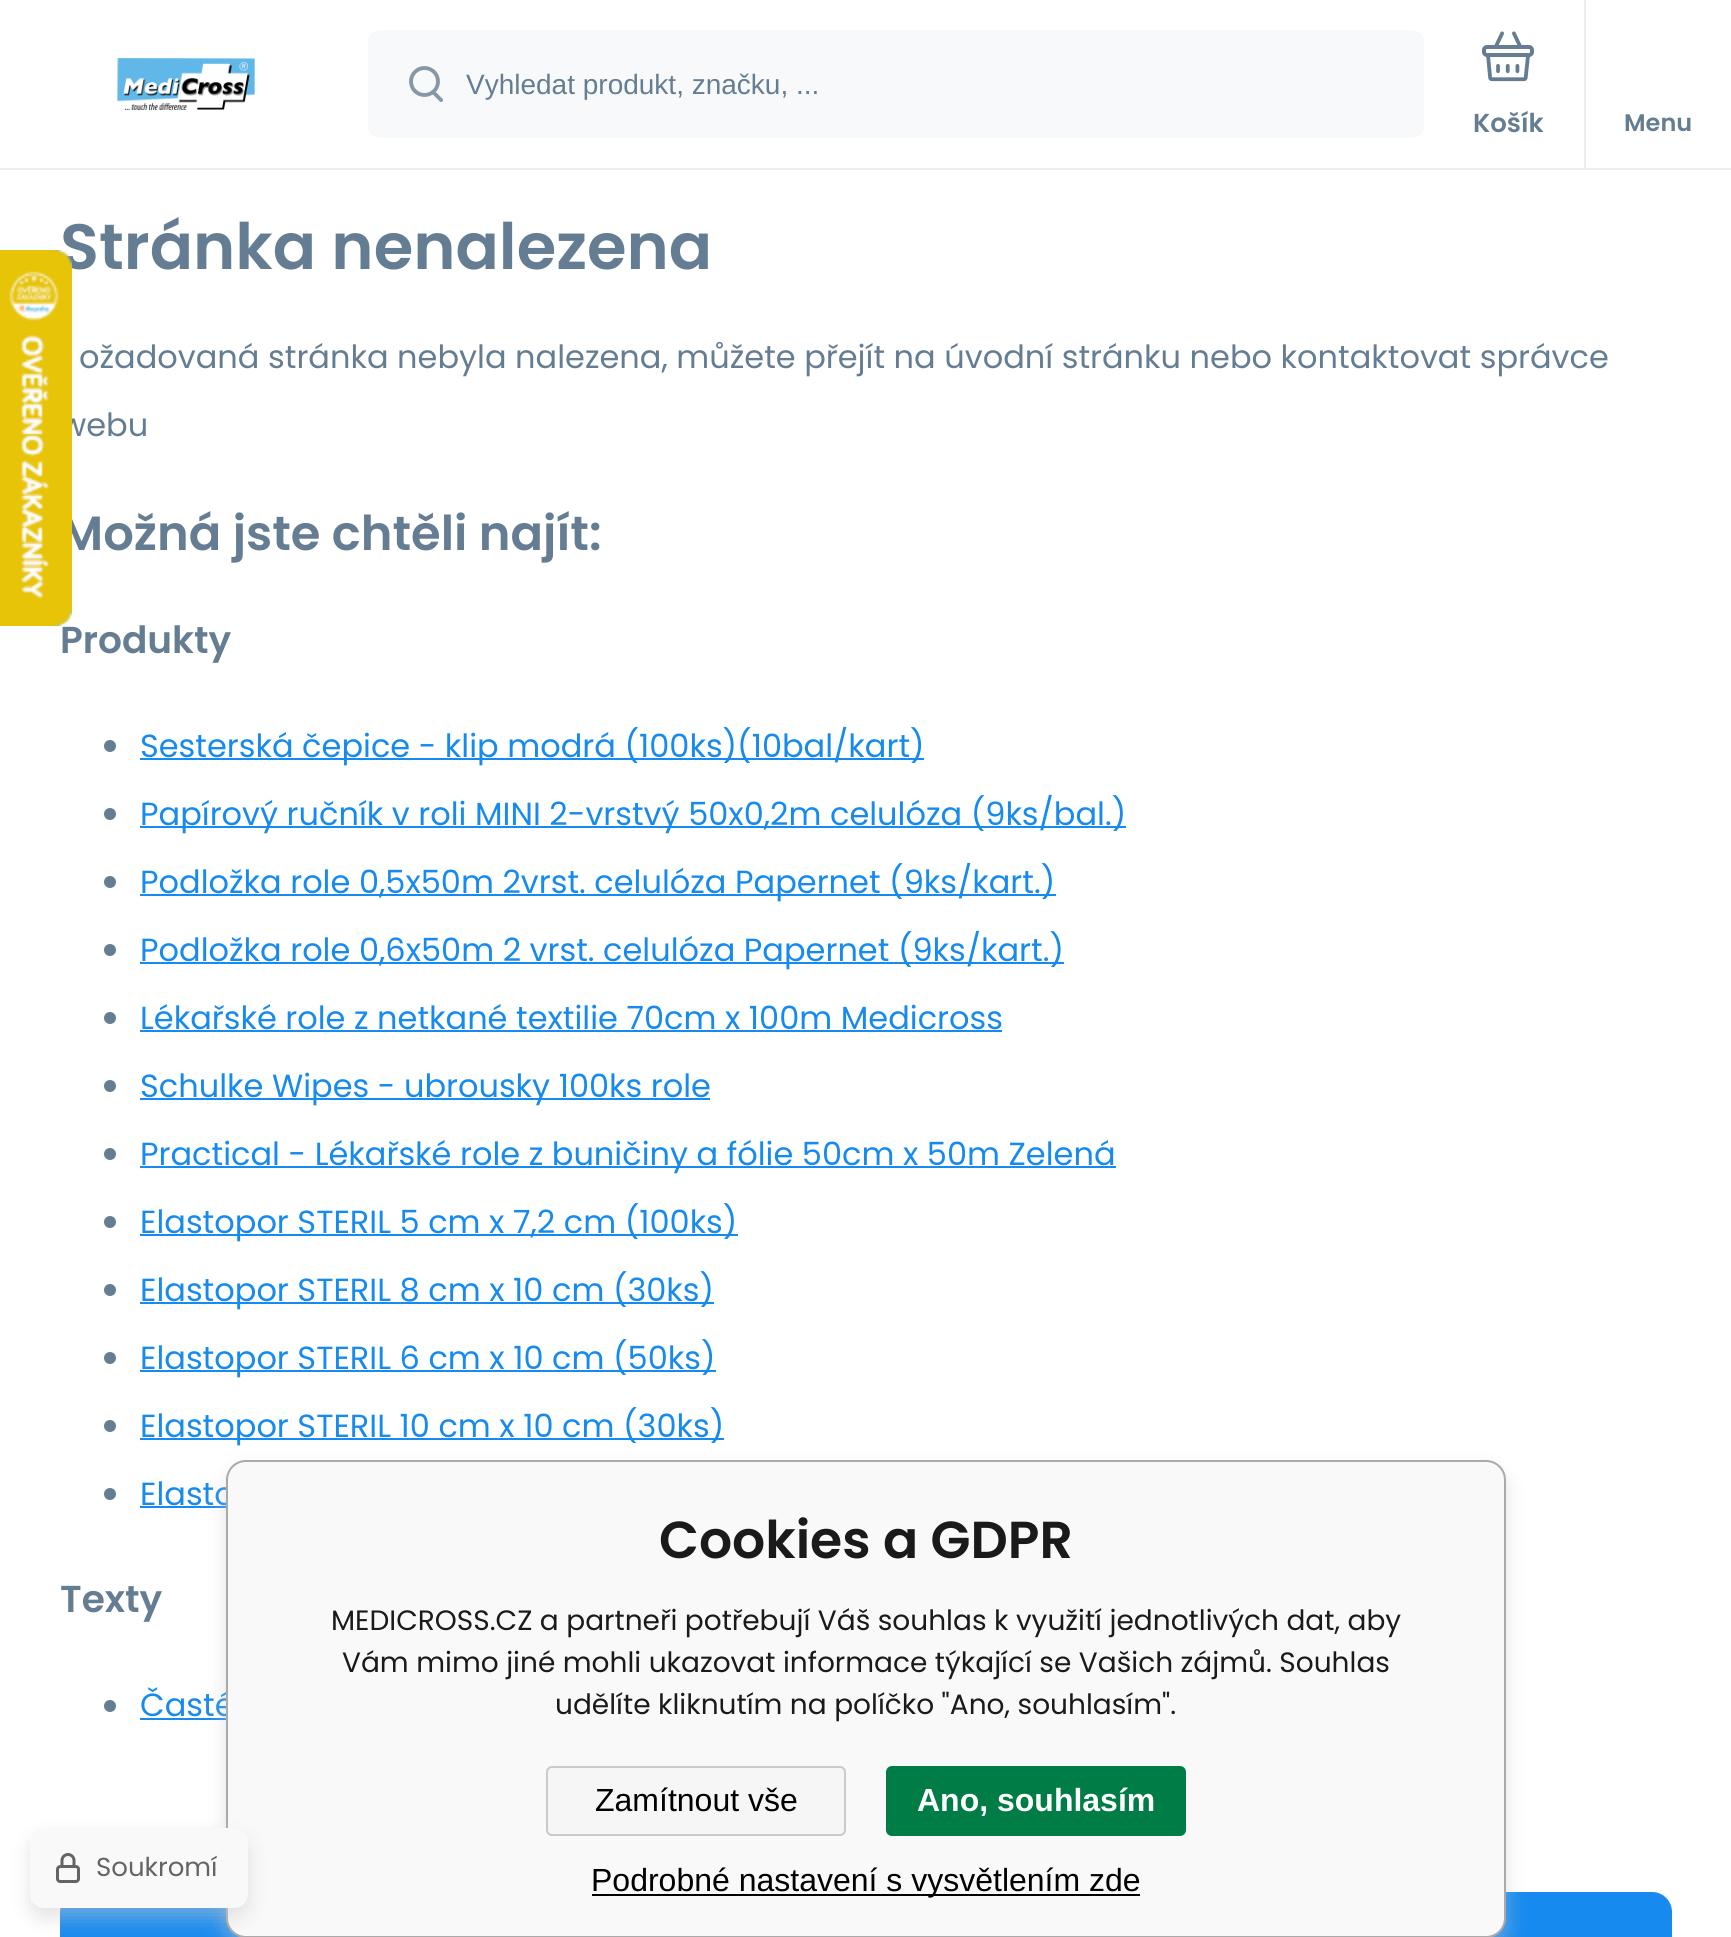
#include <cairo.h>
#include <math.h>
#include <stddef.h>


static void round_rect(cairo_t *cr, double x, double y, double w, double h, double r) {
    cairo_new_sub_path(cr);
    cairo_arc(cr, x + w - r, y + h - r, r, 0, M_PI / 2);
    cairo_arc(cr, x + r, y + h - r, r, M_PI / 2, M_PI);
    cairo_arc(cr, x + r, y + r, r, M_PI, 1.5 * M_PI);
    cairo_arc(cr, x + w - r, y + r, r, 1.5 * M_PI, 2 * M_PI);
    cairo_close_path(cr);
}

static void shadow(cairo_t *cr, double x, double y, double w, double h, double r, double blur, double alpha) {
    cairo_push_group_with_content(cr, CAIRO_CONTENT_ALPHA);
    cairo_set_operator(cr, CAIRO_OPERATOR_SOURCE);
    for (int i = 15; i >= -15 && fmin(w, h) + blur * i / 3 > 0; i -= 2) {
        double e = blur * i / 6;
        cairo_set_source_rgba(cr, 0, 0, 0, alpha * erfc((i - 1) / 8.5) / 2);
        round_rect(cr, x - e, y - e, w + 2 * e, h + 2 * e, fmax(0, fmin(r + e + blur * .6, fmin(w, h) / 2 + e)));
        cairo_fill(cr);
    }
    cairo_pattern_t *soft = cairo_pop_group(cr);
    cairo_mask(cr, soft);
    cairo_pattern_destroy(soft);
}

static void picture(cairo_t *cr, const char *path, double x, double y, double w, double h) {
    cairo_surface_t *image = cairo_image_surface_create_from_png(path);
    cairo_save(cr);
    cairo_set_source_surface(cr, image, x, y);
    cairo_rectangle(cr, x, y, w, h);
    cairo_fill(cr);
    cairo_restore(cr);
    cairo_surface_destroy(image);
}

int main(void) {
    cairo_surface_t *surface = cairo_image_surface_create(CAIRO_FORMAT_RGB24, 1731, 1937);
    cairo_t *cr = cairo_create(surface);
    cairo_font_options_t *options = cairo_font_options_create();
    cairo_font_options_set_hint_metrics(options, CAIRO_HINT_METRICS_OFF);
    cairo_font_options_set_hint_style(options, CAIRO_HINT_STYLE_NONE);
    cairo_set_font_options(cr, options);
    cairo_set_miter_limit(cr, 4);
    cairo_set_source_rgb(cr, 1, 1, 1);
    cairo_paint(cr);
    cairo_select_font_face(cr, "Poppins SemiBold", CAIRO_FONT_SLANT_NORMAL, CAIRO_FONT_WEIGHT_NORMAL);
    cairo_set_font_size(cr, 64);
    cairo_set_source_rgb(cr, 0.396, 0.49, 0.573);
    cairo_move_to(cr, 60, 269);
    cairo_show_text(cr, "Stránka nenalezena");
    cairo_select_font_face(cr, "Poppins", CAIRO_FONT_SLANT_NORMAL, CAIRO_FONT_WEIGHT_NORMAL);
    cairo_set_font_size(cr, 32);
    cairo_move_to(cr, 60, 436);
    cairo_show_text(cr, "webu");
    cairo_select_font_face(cr, "Poppins SemiBold", CAIRO_FONT_SLANT_NORMAL, CAIRO_FONT_WEIGHT_NORMAL);
    cairo_set_font_size(cr, 48);
    cairo_move_to(cr, 60, 550);
    cairo_show_text(cr, "Možná jste chtěli najít:");
    cairo_set_font_size(cr, 37.5);
    cairo_move_to(cr, 60, 653);
    cairo_show_text(cr, "Produkty");
    picture(cr, "img1.png", 0, 250, 72, 376);
    cairo_set_source_rgb(cr, 0.925, 0.929, 0.937);
    cairo_rectangle(cr, 0, 168, 1731, 2);
    cairo_fill(cr);
    picture(cr, "img2.png", 117, 58, 138, 52);
    cairo_set_source_rgb(cr, 0.969, 0.973, 0.98);
    round_rect(cr, 368, 30, 1056, 108, 12);
    cairo_fill(cr);
    picture(cr, "img3.png", 409, 66, 34, 36);
    cairo_select_font_face(cr, "Liberation Sans", CAIRO_FONT_SLANT_NORMAL, CAIRO_FONT_WEIGHT_NORMAL);
    cairo_set_font_size(cr, 28);
    cairo_set_source_rgb(cr, 0.396, 0.49, 0.573);
    cairo_move_to(cr, 466, 94);
    cairo_show_text(cr, "Vyhledat produkt, značku, ...");
    picture(cr, "img4.png", 1482, 31, 52, 51);
    cairo_select_font_face(cr, "Poppins SemiBold", CAIRO_FONT_SLANT_NORMAL, CAIRO_FONT_WEIGHT_NORMAL);
    cairo_set_font_size(cr, 26);
    cairo_move_to(cr, 1473, 132);
    cairo_show_text(cr, "Košík");
    cairo_set_source_rgb(cr, 0.925, 0.929, 0.937);
    cairo_rectangle(cr, 1584, 0, 2, 168);
    cairo_fill(cr);
    cairo_set_font_size(cr, 24);
    cairo_set_source_rgb(cr, 0.396, 0.49, 0.573);
    cairo_move_to(cr, 1624, 131);
    cairo_show_text(cr, "Menu");
    cairo_select_font_face(cr, "Poppins", CAIRO_FONT_SLANT_NORMAL, CAIRO_FONT_WEIGHT_NORMAL);
    cairo_set_font_size(cr, 32);
    cairo_move_to(cr, 79, 368);
    cairo_show_text(cr, "ožadovaná stránka nebyla nalezena, můžete přejít na úvodní stránku nebo kontaktovat správce");
    cairo_new_path(cr);
    cairo_arc(cr, 110, 746, 6, 0, 2 * M_PI);
    cairo_fill(cr);
    cairo_set_source_rgb(cr, 0.09, 0.541, 0.937);
    cairo_rectangle(cr, 140, 758, 784, 2);
    cairo_fill(cr);
    cairo_move_to(cr, 140, 757);
    cairo_show_text(cr, "Sesterská čepice - klip modrá (100ks)(10bal/kart)");
    cairo_set_source_rgb(cr, 0.396, 0.49, 0.573);
    cairo_new_path(cr);
    cairo_arc(cr, 110, 814, 6, 0, 2 * M_PI);
    cairo_fill(cr);
    cairo_set_source_rgb(cr, 0.09, 0.541, 0.937);
    cairo_rectangle(cr, 140, 826, 986, 2);
    cairo_fill(cr);
    cairo_move_to(cr, 140, 825);
    cairo_show_text(cr, "Papírový ručník v roli MINI 2-vrstvý 50x0,2m celulóza (9ks/bal.)");
    cairo_set_source_rgb(cr, 0.396, 0.49, 0.573);
    cairo_new_path(cr);
    cairo_arc(cr, 110, 882, 6, 0, 2 * M_PI);
    cairo_fill(cr);
    cairo_set_source_rgb(cr, 0.09, 0.541, 0.937);
    cairo_rectangle(cr, 140, 894, 916, 2);
    cairo_fill(cr);
    cairo_move_to(cr, 140, 893);
    cairo_show_text(cr, "Podložka role 0,5x50m 2vrst. celulóza Papernet (9ks/kart.)");
    cairo_set_source_rgb(cr, 0.396, 0.49, 0.573);
    cairo_new_path(cr);
    cairo_arc(cr, 110, 950, 6, 0, 2 * M_PI);
    cairo_fill(cr);
    cairo_set_source_rgb(cr, 0.09, 0.541, 0.937);
    cairo_rectangle(cr, 140, 962, 924, 2);
    cairo_fill(cr);
    cairo_move_to(cr, 140, 961);
    cairo_show_text(cr, "Podložka role 0,6x50m 2 vrst. celulóza Papernet (9ks/kart.)");
    cairo_set_source_rgb(cr, 0.396, 0.49, 0.573);
    cairo_new_path(cr);
    cairo_arc(cr, 110, 1018, 6, 0, 2 * M_PI);
    cairo_fill(cr);
    cairo_set_source_rgb(cr, 0.09, 0.541, 0.937);
    cairo_move_to(cr, 140, 1029);
    cairo_show_text(cr, "Lékařské role z netkané textilie 70cm x 100m Medicross");
    cairo_rectangle(cr, 140, 1030, 862, 2);
    cairo_fill(cr);
    cairo_set_source_rgb(cr, 0.396, 0.49, 0.573);
    cairo_arc(cr, 110, 1086, 6, 0, 2 * M_PI);
    cairo_fill(cr);
    cairo_set_source_rgb(cr, 0.09, 0.541, 0.937);
    cairo_rectangle(cr, 140, 1098, 570, 2);
    cairo_fill(cr);
    cairo_move_to(cr, 140, 1097);
    cairo_show_text(cr, "Schulke Wipes - ubrousky 100ks role");
    cairo_set_source_rgb(cr, 0.396, 0.49, 0.573);
    cairo_new_path(cr);
    cairo_arc(cr, 110, 1154, 6, 0, 2 * M_PI);
    cairo_fill(cr);
    cairo_set_source_rgb(cr, 0.09, 0.541, 0.937);
    cairo_rectangle(cr, 140, 1166, 976, 2);
    cairo_fill(cr);
    cairo_move_to(cr, 140, 1165);
    cairo_show_text(cr, "Practical - Lékařské role z buničiny a fólie 50cm x 50m Zelená");
    cairo_set_source_rgb(cr, 0.396, 0.49, 0.573);
    cairo_new_path(cr);
    cairo_arc(cr, 110, 1222, 6, 0, 2 * M_PI);
    cairo_fill(cr);
    cairo_set_source_rgb(cr, 0.09, 0.541, 0.937);
    cairo_rectangle(cr, 140, 1234, 598, 2);
    cairo_fill(cr);
    cairo_move_to(cr, 140, 1233);
    cairo_show_text(cr, "Elastopor STERIL 5 cm x 7,2 cm (100ks)");
    cairo_set_source_rgb(cr, 0.396, 0.49, 0.573);
    cairo_new_path(cr);
    cairo_arc(cr, 110, 1290, 6, 0, 2 * M_PI);
    cairo_fill(cr);
    cairo_set_source_rgb(cr, 0.09, 0.541, 0.937);
    cairo_rectangle(cr, 140, 1302, 574, 2);
    cairo_fill(cr);
    cairo_move_to(cr, 140, 1301);
    cairo_show_text(cr, "Elastopor STERIL 8 cm x 10 cm (30ks)");
    cairo_set_source_rgb(cr, 0.396, 0.49, 0.573);
    cairo_new_path(cr);
    cairo_arc(cr, 110, 1358, 6, 0, 2 * M_PI);
    cairo_fill(cr);
    cairo_set_source_rgb(cr, 0.09, 0.541, 0.937);
    cairo_rectangle(cr, 140, 1370, 576, 2);
    cairo_fill(cr);
    cairo_move_to(cr, 140, 1369);
    cairo_show_text(cr, "Elastopor STERIL 6 cm x 10 cm (50ks)");
    cairo_set_source_rgb(cr, 0.396, 0.49, 0.573);
    cairo_new_path(cr);
    cairo_arc(cr, 110, 1426, 6, 0, 2 * M_PI);
    cairo_fill(cr);
    cairo_set_source_rgb(cr, 0.09, 0.541, 0.937);
    cairo_rectangle(cr, 140, 1438, 584, 2);
    cairo_fill(cr);
    cairo_move_to(cr, 140, 1437);
    cairo_show_text(cr, "Elastopor STERIL 10 cm x 10 cm (30ks)");
    cairo_set_source_rgb(cr, 0.396, 0.49, 0.573);
    cairo_new_path(cr);
    cairo_arc(cr, 110, 1494, 6, 0, 2 * M_PI);
    cairo_fill(cr);
    cairo_set_source_rgb(cr, 0.09, 0.541, 0.937);
    cairo_move_to(cr, 140, 1505);
    cairo_show_text(cr, "Elasto");
    cairo_rectangle(cr, 140, 1506, 86, 2);
    cairo_fill(cr);
    cairo_select_font_face(cr, "Poppins SemiBold", CAIRO_FONT_SLANT_NORMAL, CAIRO_FONT_WEIGHT_NORMAL);
    cairo_set_font_size(cr, 37.5);
    cairo_set_source_rgb(cr, 0.396, 0.49, 0.573);
    cairo_move_to(cr, 60, 1612);
    cairo_show_text(cr, "Texty");
    cairo_new_path(cr);
    cairo_arc(cr, 110, 1706, 6, 0, 2 * M_PI);
    cairo_fill(cr);
    cairo_select_font_face(cr, "Poppins", CAIRO_FONT_SLANT_NORMAL, CAIRO_FONT_WEIGHT_NORMAL);
    cairo_set_font_size(cr, 32);
    cairo_set_source_rgb(cr, 0.09, 0.541, 0.937);
    cairo_move_to(cr, 140, 1716);
    cairo_show_text(cr, "Časté");
    cairo_rectangle(cr, 140, 1718, 86, 2);
    cairo_fill(cr);
    round_rect(cr, 60, 1892, 1612, 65, 20);
    cairo_fill(cr);
    cairo_set_source_rgb(cr, 0.784, 0.784, 0.784);
    shadow(cr, 226, 1470, 1280, 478, 20, 10, 0.5);
    cairo_set_source_rgb(cr, 0.973, 0.973, 0.973);
    round_rect(cr, 227, 1461, 1278, 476, 19);
    cairo_fill_preserve(cr);
    cairo_set_source_rgb(cr, 0.667, 0.667, 0.667);
    cairo_stroke(cr);
    cairo_set_source_rgb(cr, 0.784, 0.784, 0.784);
    shadow(cr, 30, 1838, 218, 80, 14, 10, 0.5);
    cairo_set_source_rgb(cr, 0.973, 0.973, 0.973);
    round_rect(cr, 30, 1828, 218, 80, 14);
    cairo_fill(cr);
    picture(cr, "img5.png", 56, 1853, 24, 30);
    cairo_set_font_size(cr, 26);
    cairo_set_source_rgb(cr, 0.392, 0.392, 0.392);
    cairo_move_to(cr, 96, 1876);
    cairo_show_text(cr, "Soukromí");
    cairo_select_font_face(cr, "Poppins SemiBold", CAIRO_FONT_SLANT_NORMAL, CAIRO_FONT_WEIGHT_NORMAL);
    cairo_set_font_size(cr, 52);
    cairo_set_source_rgb(cr, 0.102, 0.102, 0.102);
    cairo_move_to(cr, 659, 1558);
    cairo_show_text(cr, "Cookies a GDPR");
    cairo_select_font_face(cr, "Poppins", CAIRO_FONT_SLANT_NORMAL, CAIRO_FONT_WEIGHT_NORMAL);
    cairo_set_font_size(cr, 28);
    cairo_move_to(cr, 331, 1630);
    cairo_show_text(cr, "MEDICROSS.CZ a partneři potřebují Váš souhlas k využití jednotlivých dat, aby");
    cairo_move_to(cr, 342, 1672);
    cairo_show_text(cr, "Vám mimo jiné mohli ukazovat informace týkající se Vašich zájmů. Souhlas");
    cairo_move_to(cr, 555, 1714);
    cairo_show_text(cr, "udělíte kliknutím na políčko \"Ano, souhlasím\".");
    cairo_set_source_rgb(cr, 0.961, 0.961, 0.961);
    round_rect(cr, 547, 1767, 298, 68, 5);
    cairo_fill_preserve(cr);
    cairo_set_source_rgb(cr, 0.792, 0.792, 0.792);
    cairo_stroke(cr);
    cairo_select_font_face(cr, "Liberation Sans", CAIRO_FONT_SLANT_NORMAL, CAIRO_FONT_WEIGHT_NORMAL);
    cairo_set_font_size(cr, 32);
    cairo_set_source_rgb(cr, 0, 0, 0);
    cairo_move_to(cr, 595, 1811);
    cairo_show_text(cr, "Zamítnout vše");
    cairo_set_source_rgb(cr, 0, 0.486, 0.278);
    round_rect(cr, 887, 1767, 298, 68, 5);
    cairo_fill_preserve(cr);
    cairo_stroke(cr);
    cairo_select_font_face(cr, "Liberation Sans", CAIRO_FONT_SLANT_NORMAL, CAIRO_FONT_WEIGHT_BOLD);
    cairo_set_source_rgb(cr, 1, 1, 1);
    cairo_move_to(cr, 917, 1811);
    cairo_show_text(cr, "Ano, souhlasím");
    cairo_set_source_rgb(cr, 0, 0, 0);
    cairo_rectangle(cr, 592, 1894, 548, 2);
    cairo_fill(cr);
    cairo_select_font_face(cr, "Liberation Sans", CAIRO_FONT_SLANT_NORMAL, CAIRO_FONT_WEIGHT_NORMAL);
    cairo_move_to(cr, 591, 1891);
    cairo_show_text(cr, "Podrobné nastavení s vysvětlením zde");
    cairo_surface_write_to_png(surface, "page.png");
    cairo_font_options_destroy(options);
    cairo_destroy(cr);
    cairo_surface_destroy(surface);
    return 0;
}
